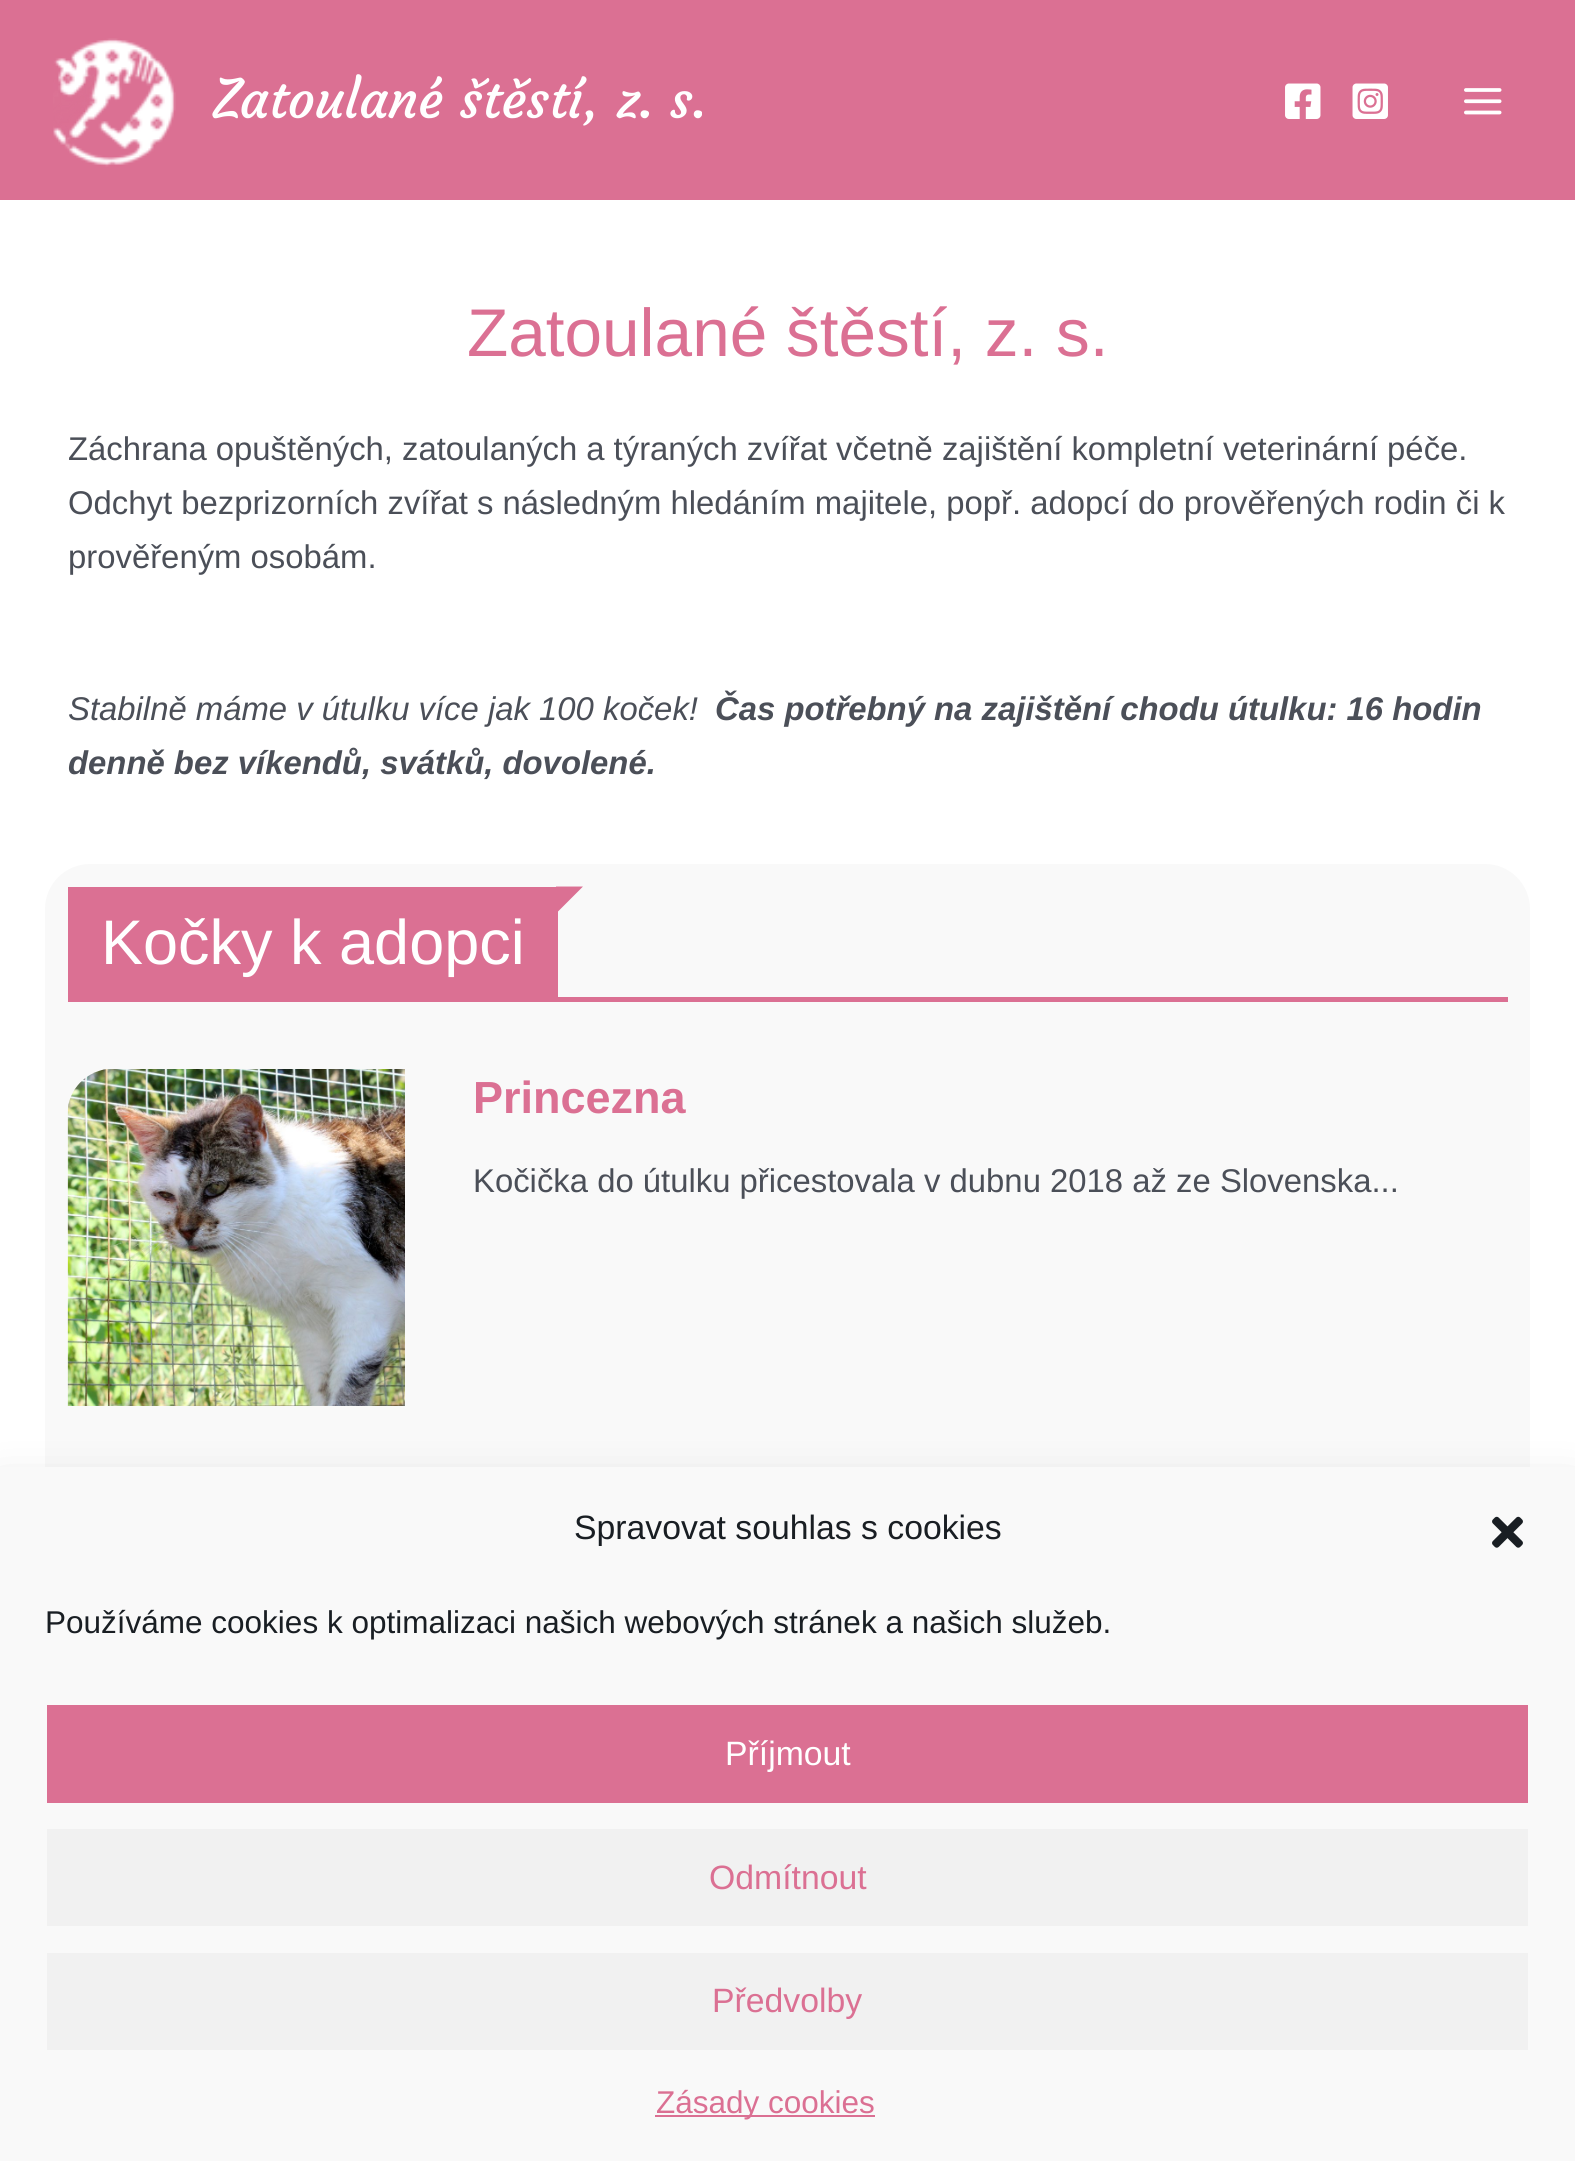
#include <cairo.h>
#include <math.h>
#include <stddef.h>


static void spaced_text(cairo_t *cr, double x, double y, const char *s, double letter, double word) {
    cairo_move_to(cr, x, y);
    while (*s) {
        char ch[5] = {0};
        int n = 0;
        do ch[n++] = *s++; while ((*s & 0xC0) == 0x80);
        cairo_show_text(cr, ch);
        cairo_rel_move_to(cr, letter + word * (*ch == ' '), 0);
    }
}

static void round_rect(cairo_t *cr, double x, double y, double w, double h, double r) {
    cairo_new_sub_path(cr);
    cairo_arc(cr, x + w - r, y + h - r, r, 0, M_PI / 2);
    cairo_arc(cr, x + r, y + h - r, r, M_PI / 2, M_PI);
    cairo_arc(cr, x + r, y + r, r, M_PI, 1.5 * M_PI);
    cairo_arc(cr, x + w - r, y + r, r, 1.5 * M_PI, 2 * M_PI);
    cairo_close_path(cr);
}

static void shadow(cairo_t *cr, double x, double y, double w, double h, double r, double blur, double alpha) {
    cairo_push_group_with_content(cr, CAIRO_CONTENT_ALPHA);
    cairo_set_operator(cr, CAIRO_OPERATOR_SOURCE);
    for (int i = 15; i >= -15 && fmin(w, h) + blur * i / 3 > 0; i -= 2) {
        double e = blur * i / 6;
        cairo_set_source_rgba(cr, 0, 0, 0, alpha * erfc((i - 1) / 8.5) / 2);
        round_rect(cr, x - e, y - e, w + 2 * e, h + 2 * e, fmax(0, fmin(r + e + blur * .6, fmin(w, h) / 2 + e)));
        cairo_fill(cr);
    }
    cairo_pattern_t *soft = cairo_pop_group(cr);
    cairo_mask(cr, soft);
    cairo_pattern_destroy(soft);
}

static void picture(cairo_t *cr, const char *path, double x, double y, double w, double h) {
    cairo_surface_t *image = cairo_image_surface_create_from_png(path);
    cairo_save(cr);
    cairo_set_source_surface(cr, image, x, y);
    cairo_rectangle(cr, x, y, w, h);
    cairo_fill(cr);
    cairo_restore(cr);
    cairo_surface_destroy(image);
}

int main(void) {
    cairo_surface_t *surface = cairo_image_surface_create(CAIRO_FORMAT_RGB24, 1575, 2161);
    cairo_t *cr = cairo_create(surface);
    cairo_font_options_t *options = cairo_font_options_create();
    cairo_font_options_set_hint_metrics(options, CAIRO_HINT_METRICS_OFF);
    cairo_font_options_set_hint_style(options, CAIRO_HINT_STYLE_NONE);
    cairo_set_font_options(cr, options);
    cairo_set_miter_limit(cr, 4);
    cairo_set_source_rgb(cr, 1, 1, 1);
    cairo_paint(cr);
    cairo_set_source_rgb(cr, 0.859, 0.439, 0.576);
    cairo_rectangle(cr, 0, 0, 1575, 200);
    cairo_fill(cr);
    picture(cr, "img1.png", 53, 38, 123, 129);
    cairo_select_font_face(cr, "Courgette", CAIRO_FONT_SLANT_NORMAL, CAIRO_FONT_WEIGHT_NORMAL);
    cairo_set_font_size(cr, 53.25);
    cairo_set_source_rgb(cr, 1, 1, 1);
    cairo_move_to(cr, 213, 118);
    cairo_show_text(cr, "Zatoulané štěstí, z. s.");
    picture(cr, "img2.png", 1285, 83, 36, 36);
    picture(cr, "img3.png", 1352, 83, 36, 36);
    picture(cr, "img4.png", 1464, 88, 38, 27);
    cairo_select_font_face(cr, "Liberation Sans", CAIRO_FONT_SLANT_NORMAL, CAIRO_FONT_WEIGHT_NORMAL);
    cairo_set_font_size(cr, 67.5);
    cairo_set_source_rgb(cr, 0.859, 0.439, 0.576);
    cairo_move_to(cr, 467, 356);
    cairo_show_text(cr, "Zatoulané štěstí, z. s.");
    cairo_set_font_size(cr, 32.85);
    cairo_set_source_rgb(cr, 0.294, 0.31, 0.345);
    spaced_text(cr, 68, 460, "Záchrana opuštěných, zatoulaných a týraných zvířat včetně zajištění kompletní veterinární péče.", 0, -0.1);
    cairo_move_to(cr, 68, 514);
    cairo_show_text(cr, "Odchyt bezprizorních zvířat s následným hledáním majitele, popř. adopcí do prověřených rodin či k");
    cairo_move_to(cr, 68, 568);
    cairo_show_text(cr, "prověřeným osobám.");
    cairo_select_font_face(cr, "Liberation Sans", CAIRO_FONT_SLANT_ITALIC, CAIRO_FONT_WEIGHT_NORMAL);
    cairo_move_to(cr, 68, 720);
    cairo_show_text(cr, "Stabilně máme v útulku více jak 100 koček!");
    cairo_select_font_face(cr, "Liberation Sans", CAIRO_FONT_SLANT_ITALIC, CAIRO_FONT_WEIGHT_BOLD);
    cairo_move_to(cr, 715, 720);
    cairo_show_text(cr, "Čas potřebný na zajištění chodu útulku: 16 hodin");
    cairo_move_to(cr, 68, 774);
    cairo_show_text(cr, "denně bez víkendů, svátků, dovolené.");
    cairo_set_source_rgb(cr, 0.973, 0.973, 0.973);
    round_rect(cr, 45, 864, 1485, 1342, 45);
    cairo_fill(cr);
    cairo_set_source_rgb(cr, 0.859, 0.439, 0.576);
    cairo_rectangle(cr, 68, 997, 1440, 5);
    cairo_fill(cr);
    cairo_rectangle(cr, 68, 887, 490, 110);
    cairo_fill(cr);
    cairo_new_path(cr);
    cairo_move_to(cr, 556, 886.5);
    cairo_line_to(cr, 583, 886.5);
    cairo_line_to(cr, 556, 913.5);
    cairo_close_path(cr);
    cairo_fill(cr);
    cairo_select_font_face(cr, "Liberation Sans", CAIRO_FONT_SLANT_NORMAL, CAIRO_FONT_WEIGHT_NORMAL);
    cairo_set_font_size(cr, 63);
    cairo_set_source_rgb(cr, 1, 1, 1);
    cairo_move_to(cr, 101, 964);
    cairo_show_text(cr, "Kočky k adopci");
    picture(cr, "img5.png", 67, 1069, 338, 337);
    cairo_select_font_face(cr, "Liberation Sans", CAIRO_FONT_SLANT_NORMAL, CAIRO_FONT_WEIGHT_BOLD);
    cairo_set_font_size(cr, 45);
    cairo_set_source_rgb(cr, 0.859, 0.439, 0.576);
    cairo_move_to(cr, 473, 1113);
    cairo_show_text(cr, "Princezna");
    cairo_select_font_face(cr, "Liberation Sans", CAIRO_FONT_SLANT_NORMAL, CAIRO_FONT_WEIGHT_NORMAL);
    cairo_set_font_size(cr, 32.85);
    cairo_set_source_rgb(cr, 0.294, 0.31, 0.345);
    cairo_move_to(cr, 473, 1192);
    cairo_show_text(cr, "Kočička do útulku přicestovala v dubnu 2018 až ze Slovenska...");
    cairo_set_source_rgb(cr, 0, 0, 0);
    shadow(cr, 0, 1490, 1575, 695, 0, 22.5, 0.19);
    cairo_set_source_rgb(cr, 0.973, 0.973, 0.973);
    cairo_rectangle(cr, 0, 1467, 1575, 694);
    cairo_fill(cr);
    cairo_set_font_size(cr, 33.75);
    cairo_set_source_rgb(cr, 0.098, 0.118, 0.137);
    cairo_move_to(cr, 574, 1539);
    cairo_show_text(cr, "Spravovat souhlas s cookies");
    picture(cr, "img6.png", 1492, 1516, 31, 32);
    cairo_set_font_size(cr, 31.5);
    cairo_move_to(cr, 45, 1633);
    cairo_show_text(cr, "Používáme cookies k optimalizaci našich webových stránek a našich služeb.");
    cairo_set_source_rgb(cr, 0.859, 0.439, 0.576);
    cairo_rectangle(cr, 47, 1705, 1481, 98);
    cairo_fill(cr);
    cairo_set_font_size(cr, 33.75);
    cairo_set_source_rgb(cr, 1, 1, 1);
    cairo_move_to(cr, 725, 1765);
    cairo_show_text(cr, "Příjmout");
    cairo_set_source_rgb(cr, 0.945, 0.945, 0.945);
    cairo_rectangle(cr, 47, 1829, 1481, 97);
    cairo_fill(cr);
    cairo_set_source_rgb(cr, 0.859, 0.439, 0.576);
    cairo_move_to(cr, 709, 1889);
    cairo_show_text(cr, "Odmítnout");
    cairo_set_source_rgb(cr, 0.945, 0.945, 0.945);
    cairo_rectangle(cr, 47, 1953, 1481, 97);
    cairo_fill(cr);
    cairo_set_source_rgb(cr, 0.859, 0.439, 0.576);
    cairo_move_to(cr, 712, 2012);
    cairo_show_text(cr, "Předvolby");
    cairo_rectangle(cr, 655, 2115, 220, 2);
    cairo_fill(cr);
    cairo_set_font_size(cr, 31.5);
    cairo_move_to(cr, 656, 2113);
    cairo_show_text(cr, "Zásady cookies");
    cairo_surface_write_to_png(surface, "page.png");
    cairo_font_options_destroy(options);
    cairo_destroy(cr);
    cairo_surface_destroy(surface);
    return 0;
}
